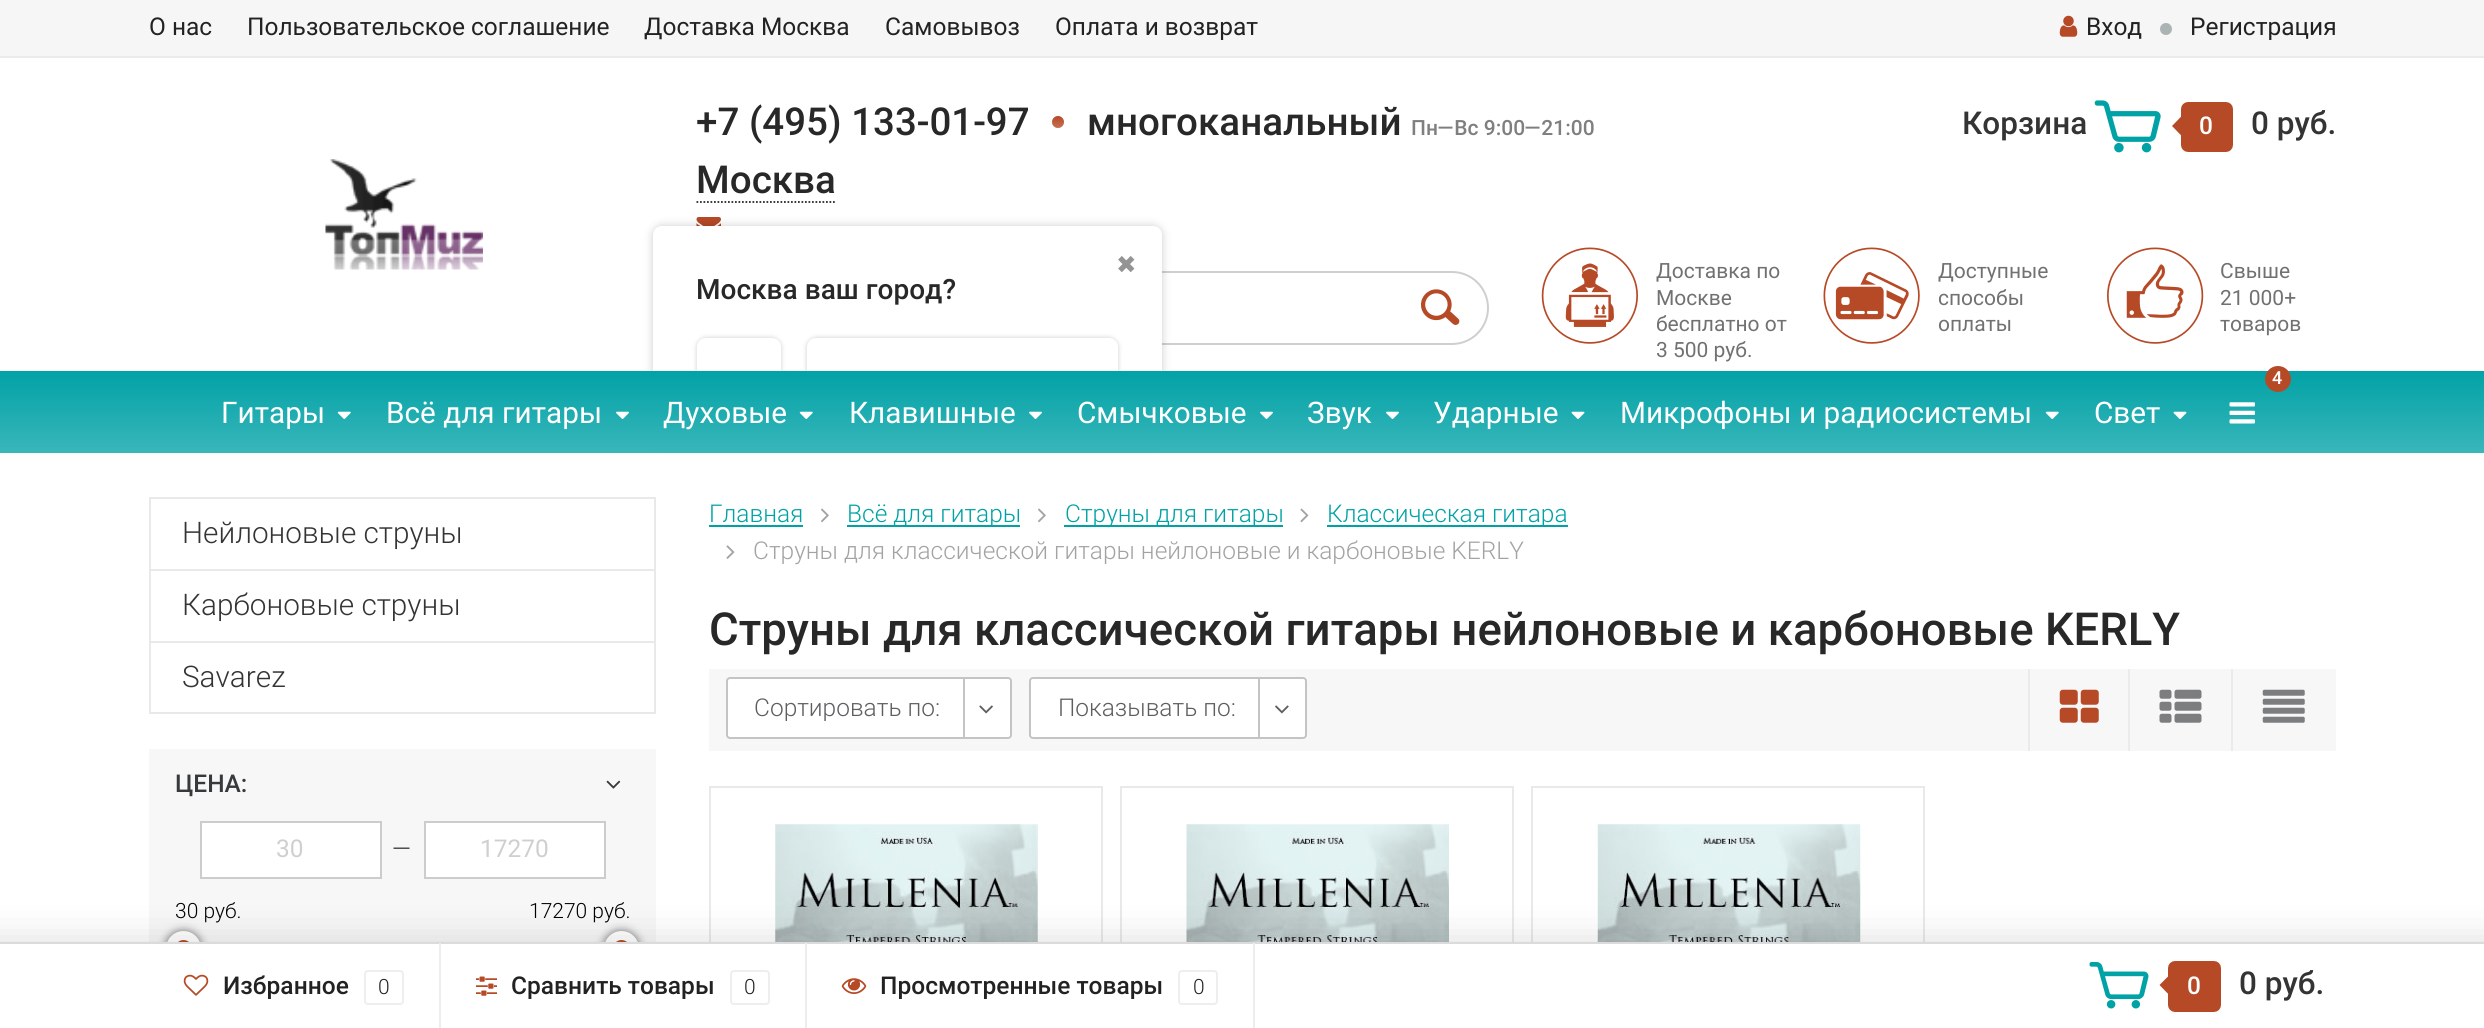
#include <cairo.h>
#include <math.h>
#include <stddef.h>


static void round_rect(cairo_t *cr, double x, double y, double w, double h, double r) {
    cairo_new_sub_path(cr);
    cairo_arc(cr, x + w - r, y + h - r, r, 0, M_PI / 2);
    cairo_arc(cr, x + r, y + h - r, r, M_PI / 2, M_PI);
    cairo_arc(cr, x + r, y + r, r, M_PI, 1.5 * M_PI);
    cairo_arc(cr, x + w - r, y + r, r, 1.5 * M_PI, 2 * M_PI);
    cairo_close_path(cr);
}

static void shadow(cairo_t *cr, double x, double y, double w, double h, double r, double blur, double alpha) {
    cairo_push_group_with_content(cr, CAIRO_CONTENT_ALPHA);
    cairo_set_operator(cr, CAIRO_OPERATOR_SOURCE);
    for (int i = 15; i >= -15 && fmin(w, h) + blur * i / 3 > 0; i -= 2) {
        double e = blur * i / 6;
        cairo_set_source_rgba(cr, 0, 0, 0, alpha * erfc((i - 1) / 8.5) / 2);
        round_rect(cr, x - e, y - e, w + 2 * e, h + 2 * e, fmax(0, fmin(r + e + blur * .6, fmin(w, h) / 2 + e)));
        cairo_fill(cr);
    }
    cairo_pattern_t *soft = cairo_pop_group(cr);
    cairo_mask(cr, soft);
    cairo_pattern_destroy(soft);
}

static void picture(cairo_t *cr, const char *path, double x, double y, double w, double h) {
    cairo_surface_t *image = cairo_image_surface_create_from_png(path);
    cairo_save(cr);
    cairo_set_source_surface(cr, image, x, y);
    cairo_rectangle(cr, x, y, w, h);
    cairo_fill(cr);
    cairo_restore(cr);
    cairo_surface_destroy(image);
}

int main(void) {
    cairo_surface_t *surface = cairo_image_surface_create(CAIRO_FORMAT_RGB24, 2484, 1028);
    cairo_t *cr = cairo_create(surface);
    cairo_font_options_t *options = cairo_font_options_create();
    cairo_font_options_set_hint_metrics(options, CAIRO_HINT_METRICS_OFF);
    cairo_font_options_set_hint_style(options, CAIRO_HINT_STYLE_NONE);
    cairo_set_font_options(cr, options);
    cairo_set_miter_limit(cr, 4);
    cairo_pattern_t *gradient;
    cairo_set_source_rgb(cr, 1, 1, 1);
    cairo_paint(cr);
    cairo_set_source_rgb(cr, 0.961, 0.961, 0.961);
    cairo_rectangle(cr, 0, 0, 2484, 56);
    cairo_fill(cr);
    cairo_set_source_rgb(cr, 0.918, 0.918, 0.918);
    cairo_rectangle(cr, 0, 56, 2484, 2);
    cairo_fill(cr);
    cairo_select_font_face(cr, "Roboto", CAIRO_FONT_SLANT_NORMAL, CAIRO_FONT_WEIGHT_NORMAL);
    cairo_set_font_size(cr, 24.5);
    cairo_set_source_rgb(cr, 0.133, 0.133, 0.133);
    cairo_move_to(cr, 149, 35);
    cairo_show_text(cr, "О нас");
    cairo_move_to(cr, 247, 35);
    cairo_show_text(cr, "Пользовательское соглашение");
    cairo_move_to(cr, 644, 35);
    cairo_show_text(cr, "Доставка Москва");
    cairo_move_to(cr, 885, 35);
    cairo_show_text(cr, "Самовывоз");
    cairo_move_to(cr, 1055, 35);
    cairo_show_text(cr, "Оплата и возврат");
    picture(cr, "img1.png", 2059, 15, 19, 22);
    cairo_move_to(cr, 2086, 35);
    cairo_show_text(cr, "Вход");
    cairo_set_source_rgb(cr, 0.675, 0.702, 0.706);
    cairo_new_path(cr);
    cairo_arc(cr, 2166, 29, 6, 0, 2 * M_PI);
    cairo_fill(cr);
    cairo_set_source_rgb(cr, 0.133, 0.133, 0.133);
    cairo_move_to(cr, 2190, 35);
    cairo_show_text(cr, "Регистрация");
    picture(cr, "img2.png", 325, 159, 158, 111);
    cairo_select_font_face(cr, "Roboto Medium", CAIRO_FONT_SLANT_NORMAL, CAIRO_FONT_WEIGHT_NORMAL);
    cairo_set_font_size(cr, 38.5);
    cairo_set_source_rgb(cr, 0.157, 0.157, 0.157);
    cairo_move_to(cr, 696, 135);
    cairo_show_text(cr, "+7 (495) 133-01-97");
    cairo_set_source_rgb(cr, 0.714, 0.286, 0.149);
    cairo_new_path(cr);
    cairo_arc(cr, 1058, 122, 6, 0, 2 * M_PI);
    cairo_fill(cr);
    gradient = cairo_pattern_create_linear(1058, 116, 1058, 128);
    cairo_pattern_add_color_stop_rgba(gradient, 0, 1, 1, 1, 0);
    cairo_pattern_add_color_stop_rgba(gradient, 1, 1, 1, 1, 0.22);
    cairo_set_source(cr, gradient);
    cairo_pattern_destroy(gradient);
    cairo_arc(cr, 1058, 122, 6, 0, 2 * M_PI);
    cairo_fill(cr);
    cairo_set_source_rgb(cr, 0.157, 0.157, 0.157);
    cairo_move_to(cr, 1087, 135);
    cairo_show_text(cr, "многоканальный");
    cairo_set_font_size(cr, 21);
    cairo_set_source_rgb(cr, 0.498, 0.498, 0.498);
    cairo_move_to(cr, 1411, 135);
    cairo_show_text(cr, "Пн—Вс 9:00—21:00");
    cairo_set_font_size(cr, 38.5);
    cairo_set_source_rgb(cr, 0.157, 0.157, 0.157);
    cairo_move_to(cr, 696, 193);
    cairo_show_text(cr, "Москва");
    cairo_new_path(cr);
    cairo_move_to(cr, 696.5, 202);
    cairo_line_to(cr, 835, 202);
    cairo_set_line_width(cr, 1.8);
    cairo_set_dash(cr, (double[]){1.75, 1.75}, 2, 0);
    cairo_stroke(cr);
    picture(cr, "img3.png", 696, 217, 25, 9);
    round_rect(cr, 698, 272, 790, 72, 36);
    cairo_set_source_rgb(cr, 0.816, 0.812, 0.812);
    cairo_set_line_width(cr, 2);
    cairo_set_dash(cr, NULL, 0, 0);
    cairo_stroke(cr);
    cairo_set_source_rgb(cr, 0, 0, 0);
    shadow(cr, 653, 226, 509, 220, 9, 4.5, 0.2);
    cairo_set_source_rgb(cr, 1, 1, 1);
    round_rect(cr, 653, 226, 509, 220, 9);
    cairo_fill(cr);
    cairo_select_font_face(cr, "DejaVu Sans", CAIRO_FONT_SLANT_NORMAL, CAIRO_FONT_WEIGHT_NORMAL);
    cairo_set_font_size(cr, 24.5);
    cairo_set_source_rgb(cr, 0.58, 0.58, 0.58);
    cairo_move_to(cr, 1116, 273);
    cairo_show_text(cr, "✖");
    cairo_select_font_face(cr, "Roboto Medium", CAIRO_FONT_SLANT_NORMAL, CAIRO_FONT_WEIGHT_NORMAL);
    cairo_set_font_size(cr, 28);
    cairo_set_source_rgb(cr, 0.157, 0.157, 0.157);
    cairo_move_to(cr, 696, 299);
    cairo_show_text(cr, "Москва ваш город?");
    cairo_set_source_rgb(cr, 0, 0, 0);
    shadow(cr, 697, 338, 84, 65, 9, 2.5, 0.2);
    cairo_set_source_rgb(cr, 1, 1, 1);
    round_rect(cr, 697, 338, 84, 65, 9);
    cairo_fill(cr);
    cairo_set_source_rgb(cr, 0, 0, 0);
    shadow(cr, 807, 338, 311, 65, 9, 2.5, 0.2);
    cairo_set_source_rgb(cr, 1, 1, 1);
    round_rect(cr, 807, 338, 311, 65, 9);
    cairo_fill(cr);
    cairo_set_font_size(cr, 31.5);
    cairo_set_source_rgb(cr, 0.204, 0.204, 0.204);
    cairo_move_to(cr, 1962, 134);
    cairo_show_text(cr, "Корзина");
    picture(cr, "img4.png", 2094, 100, 67, 53);
    cairo_set_source_rgb(cr, 0.714, 0.286, 0.149);
    round_rect(cr, 2184.5, 105.5, 45, 43, 3.5);
    cairo_fill_preserve(cr);
    cairo_set_line_width(cr, 7);
    cairo_stroke(cr);
    cairo_new_path(cr);
    cairo_move_to(cr, 2187.5, 110);
    cairo_line_to(cr, 2187.5, 142);
    cairo_line_to(cr, 2172, 126);
    cairo_close_path(cr);
    cairo_fill(cr);
    cairo_set_font_size(cr, 24.5);
    cairo_set_source_rgb(cr, 1, 1, 1);
    cairo_move_to(cr, 2199, 134);
    cairo_show_text(cr, "0");
    cairo_set_font_size(cr, 31.5);
    cairo_set_source_rgb(cr, 0.204, 0.204, 0.204);
    cairo_move_to(cr, 2251, 134);
    cairo_show_text(cr, "0 руб.");
    picture(cr, "img5.png", 1421, 289, 39, 36);
    picture(cr, "img6.png", 1541, 247, 97, 97);
    cairo_select_font_face(cr, "Roboto", CAIRO_FONT_SLANT_NORMAL, CAIRO_FONT_WEIGHT_NORMAL);
    cairo_set_font_size(cr, 21);
    cairo_set_source_rgb(cr, 0.443, 0.443, 0.443);
    cairo_move_to(cr, 1656, 278);
    cairo_show_text(cr, "Доставка по");
    cairo_move_to(cr, 1656, 305);
    cairo_show_text(cr, "Москве");
    cairo_move_to(cr, 1656, 331);
    cairo_show_text(cr, "бесплатно от");
    cairo_move_to(cr, 1656, 357);
    cairo_show_text(cr, "3 500 руб.");
    picture(cr, "img7.png", 1823, 247, 97, 97);
    cairo_move_to(cr, 1938, 278);
    cairo_show_text(cr, "Доступные");
    cairo_move_to(cr, 1938, 305);
    cairo_show_text(cr, "способы");
    cairo_move_to(cr, 1938, 331);
    cairo_show_text(cr, "оплаты");
    picture(cr, "img8.png", 2107, 247, 97, 97);
    cairo_move_to(cr, 2220, 278);
    cairo_show_text(cr, "Свыше");
    cairo_move_to(cr, 2220, 305);
    cairo_show_text(cr, "21 000+");
    cairo_move_to(cr, 2220, 331);
    cairo_show_text(cr, "товаров");
    gradient = cairo_pattern_create_linear(1243, 371, 1243, 453);
    cairo_pattern_add_color_stop_rgba(gradient, 0, 0.004, 0.635, 0.651, 1);
    cairo_pattern_add_color_stop_rgba(gradient, 1, 0.224, 0.714, 0.729, 1);
    cairo_set_source(cr, gradient);
    cairo_pattern_destroy(gradient);
    cairo_rectangle(cr, 0, 371, 2484, 82);
    cairo_fill(cr);
    cairo_set_source_rgb(cr, 0.714, 0.286, 0.149);
    cairo_arc(cr, 2278, 379, 13, 0, 2 * M_PI);
    cairo_fill(cr);
    cairo_select_font_face(cr, "Roboto Medium", CAIRO_FONT_SLANT_NORMAL, CAIRO_FONT_WEIGHT_NORMAL);
    cairo_set_font_size(cr, 18);
    cairo_set_source_rgb(cr, 1, 1, 1);
    cairo_move_to(cr, 2272, 384);
    cairo_show_text(cr, "4");
    picture(cr, "img9.png", 2229, 402, 26, 22);
    cairo_select_font_face(cr, "Roboto", CAIRO_FONT_SLANT_NORMAL, CAIRO_FONT_WEIGHT_NORMAL);
    cairo_set_font_size(cr, 29.75);
    cairo_move_to(cr, 221, 423);
    cairo_show_text(cr, "Гитары");
    picture(cr, "img10.png", 337, 411, 14, 8);
    cairo_move_to(cr, 386, 423);
    cairo_show_text(cr, "Всё для гитары");
    picture(cr, "img11.png", 616, 411, 13, 8);
    cairo_move_to(cr, 663, 423);
    cairo_show_text(cr, "Духовые");
    picture(cr, "img10.png", 799, 411, 14, 8);
    cairo_move_to(cr, 849, 423);
    cairo_show_text(cr, "Клавишные");
    picture(cr, "img11.png", 1029, 411, 13, 8);
    cairo_move_to(cr, 1077, 423);
    cairo_show_text(cr, "Смычковые");
    picture(cr, "img11.png", 1260, 411, 13, 8);
    cairo_move_to(cr, 1307, 423);
    cairo_show_text(cr, "Звук");
    picture(cr, "img11.png", 1386, 411, 13, 8);
    cairo_move_to(cr, 1433, 423);
    cairo_show_text(cr, "Ударные");
    picture(cr, "img12.png", 1571, 411, 14, 8);
    cairo_move_to(cr, 1620, 423);
    cairo_show_text(cr, "Микрофоны и радиосистемы");
    picture(cr, "img10.png", 2045, 411, 14, 8);
    cairo_move_to(cr, 2094, 423);
    cairo_show_text(cr, "Свет");
    picture(cr, "img12.png", 2173, 411, 14, 8);
    cairo_rectangle(cr, 150, 498, 505, 215);
    cairo_set_source_rgb(cr, 0.914, 0.914, 0.914);
    cairo_set_line_width(cr, 2);
    cairo_stroke(cr);
    cairo_rectangle(cr, 151, 569, 504, 2);
    cairo_fill(cr);
    cairo_select_font_face(cr, "Roboto Light", CAIRO_FONT_SLANT_NORMAL, CAIRO_FONT_WEIGHT_NORMAL);
    cairo_set_source_rgb(cr, 0.204, 0.204, 0.204);
    cairo_move_to(cr, 182, 543);
    cairo_show_text(cr, "Нейлоновые струны");
    cairo_set_source_rgb(cr, 0.914, 0.914, 0.914);
    cairo_rectangle(cr, 151, 641, 504, 2);
    cairo_fill(cr);
    cairo_set_source_rgb(cr, 0.204, 0.204, 0.204);
    cairo_move_to(cr, 182, 615);
    cairo_show_text(cr, "Карбоновые струны");
    cairo_move_to(cr, 182, 687);
    cairo_show_text(cr, "Savarez");
    cairo_set_source_rgb(cr, 0.965, 0.965, 0.965);
    cairo_rectangle(cr, 149, 749, 507, 193);
    cairo_fill(cr);
    cairo_select_font_face(cr, "Roboto Medium", CAIRO_FONT_SLANT_NORMAL, CAIRO_FONT_WEIGHT_NORMAL);
    cairo_set_font_size(cr, 24.5);
    cairo_set_source_rgb(cr, 0.216, 0.227, 0.235);
    cairo_move_to(cr, 175, 792);
    cairo_show_text(cr, "ЦЕНА:");
    picture(cr, "img13.png", 606, 780, 15, 9);
    cairo_set_source_rgb(cr, 1, 1, 1);
    cairo_rectangle(cr, 201, 822, 180, 56);
    cairo_fill_preserve(cr);
    cairo_set_source_rgb(cr, 0.8, 0.8, 0.8);
    cairo_stroke(cr);
    cairo_select_font_face(cr, "Roboto", CAIRO_FONT_SLANT_NORMAL, CAIRO_FONT_WEIGHT_NORMAL);
    cairo_set_source_rgb(cr, 0.812, 0.812, 0.812);
    cairo_move_to(cr, 276, 857);
    cairo_show_text(cr, "30");
    cairo_select_font_face(cr, "Roboto Light", CAIRO_FONT_SLANT_NORMAL, CAIRO_FONT_WEIGHT_NORMAL);
    cairo_set_source_rgb(cr, 0.157, 0.157, 0.157);
    cairo_move_to(cr, 393, 857);
    cairo_show_text(cr, "—");
    cairo_set_source_rgb(cr, 1, 1, 1);
    cairo_rectangle(cr, 425, 822, 180, 56);
    cairo_fill_preserve(cr);
    cairo_set_source_rgb(cr, 0.8, 0.8, 0.8);
    cairo_stroke(cr);
    cairo_select_font_face(cr, "Roboto", CAIRO_FONT_SLANT_NORMAL, CAIRO_FONT_WEIGHT_NORMAL);
    cairo_set_source_rgb(cr, 0.812, 0.812, 0.812);
    cairo_move_to(cr, 480, 857);
    cairo_show_text(cr, "17270");
    cairo_select_font_face(cr, "Roboto Light", CAIRO_FONT_SLANT_NORMAL, CAIRO_FONT_WEIGHT_NORMAL);
    cairo_set_font_size(cr, 21);
    cairo_set_source_rgb(cr, 0, 0, 0);
    cairo_move_to(cr, 175, 918);
    cairo_show_text(cr, "30 руб.");
    cairo_move_to(cr, 529, 918);
    cairo_show_text(cr, "17270 руб.");
    cairo_set_source_rgb(cr, 0.196, 0.196, 0.196);
    shadow(cr, 166, 931, 35, 35, 17.5, 4.5, 0.65);
    cairo_set_source_rgb(cr, 0.714, 0.286, 0.149);
    cairo_arc(cr, 183.5, 948.5, 13, 0, 2 * M_PI);
    cairo_fill_preserve(cr);
    cairo_set_source_rgb(cr, 1, 1, 1);
    cairo_set_line_width(cr, 9);
    cairo_stroke(cr);
    cairo_set_source_rgb(cr, 0.196, 0.196, 0.196);
    shadow(cr, 604, 931, 35, 35, 17.5, 4.5, 0.65);
    cairo_set_source_rgb(cr, 0.714, 0.286, 0.149);
    cairo_arc(cr, 621.5, 948.5, 13, 0, 2 * M_PI);
    cairo_fill_preserve(cr);
    cairo_set_source_rgb(cr, 1, 1, 1);
    cairo_stroke(cr);
    cairo_set_font_size(cr, 24.5);
    cairo_set_source_rgb(cr, 0.004, 0.635, 0.651);
    cairo_move_to(cr, 709, 522);
    cairo_show_text(cr, "Главная");
    cairo_rectangle(cr, 709, 525, 94, 2);
    cairo_fill(cr);
    picture(cr, "img14.png", 821, 508, 8, 15);
    cairo_rectangle(cr, 847, 525, 173, 2);
    cairo_fill(cr);
    cairo_move_to(cr, 847, 522);
    cairo_show_text(cr, "Всё для гитары");
    picture(cr, "img14.png", 1038, 508, 8, 15);
    cairo_rectangle(cr, 1064, 525, 219, 2);
    cairo_fill(cr);
    cairo_move_to(cr, 1065, 522);
    cairo_show_text(cr, "Струны для гитары");
    picture(cr, "img15.png", 1300, 508, 9, 15);
    cairo_rectangle(cr, 1327, 525, 241, 2);
    cairo_fill(cr);
    cairo_move_to(cr, 1327, 522);
    cairo_show_text(cr, "Классическая гитара");
    picture(cr, "img16.png", 726, 545, 9, 14);
    cairo_set_source_rgb(cr, 0.639, 0.639, 0.639);
    cairo_move_to(cr, 753, 559);
    cairo_show_text(cr, "Струны для классической гитары нейлоновые и карбоновые KERLY");
    cairo_select_font_face(cr, "Roboto Medium", CAIRO_FONT_SLANT_NORMAL, CAIRO_FONT_WEIGHT_NORMAL);
    cairo_set_font_size(cr, 45.5);
    cairo_set_source_rgb(cr, 0.157, 0.157, 0.157);
    cairo_move_to(cr, 709, 645);
    cairo_show_text(cr, "Струны для классической гитары нейлоновые и карбоновые KERLY");
    cairo_set_source_rgb(cr, 0.965, 0.965, 0.965);
    cairo_rectangle(cr, 709, 669, 1627, 82);
    cairo_fill(cr);
    cairo_set_source_rgb(cr, 1, 1, 1);
    round_rect(cr, 727, 678, 284, 60, 3);
    cairo_fill_preserve(cr);
    cairo_set_source_rgb(cr, 0.769, 0.769, 0.769);
    cairo_set_line_width(cr, 2);
    cairo_stroke(cr);
    cairo_select_font_face(cr, "Roboto Light", CAIRO_FONT_SLANT_NORMAL, CAIRO_FONT_WEIGHT_NORMAL);
    cairo_set_font_size(cr, 24.5);
    cairo_set_source_rgb(cr, 0.365, 0.369, 0.376);
    cairo_move_to(cr, 754, 716);
    cairo_show_text(cr, "Сортировать по:");
    cairo_set_source_rgb(cr, 0.769, 0.769, 0.769);
    cairo_rectangle(cr, 963, 677, 2, 60);
    cairo_fill(cr);
    picture(cr, "img17.png", 979, 705, 14, 9);
    cairo_set_source_rgb(cr, 1, 1, 1);
    round_rect(cr, 1030, 678, 276, 60, 3);
    cairo_fill_preserve(cr);
    cairo_set_source_rgb(cr, 0.769, 0.769, 0.769);
    cairo_stroke(cr);
    cairo_set_source_rgb(cr, 0.365, 0.369, 0.376);
    cairo_move_to(cr, 1058, 716);
    cairo_show_text(cr, "Показывать по:");
    cairo_set_source_rgb(cr, 0.769, 0.769, 0.769);
    cairo_rectangle(cr, 1258, 677, 2, 60);
    cairo_fill(cr);
    picture(cr, "img18.png", 1275, 705, 14, 9);
    cairo_set_source_rgb(cr, 0.918, 0.918, 0.918);
    cairo_rectangle(cr, 2028, 669, 2, 82);
    cairo_fill(cr);
    picture(cr, "img19.png", 2059, 689, 40, 34);
    cairo_rectangle(cr, 2128, 669, 2, 82);
    cairo_fill(cr);
    picture(cr, "img20.png", 2159, 689, 43, 34);
    cairo_rectangle(cr, 2231, 669, 2, 82);
    cairo_fill(cr);
    picture(cr, "img21.png", 2262, 689, 43, 34);
    cairo_rectangle(cr, 710, 787, 392, 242);
    cairo_set_source_rgb(cr, 0.914, 0.914, 0.914);
    cairo_stroke(cr);
    picture(cr, "img22.png", 775, 824, 263, 118);
    cairo_rectangle(cr, 1121, 787, 392, 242);
    cairo_stroke(cr);
    picture(cr, "img23.png", 1186, 824, 263, 118);
    cairo_rectangle(cr, 1532, 787, 392, 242);
    cairo_stroke(cr);
    picture(cr, "img24.png", 1597, 824, 264, 118);
    cairo_set_source_rgb(cr, 0.196, 0.196, 0.196);
    shadow(cr, -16, 938, 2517, 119, 0, 17.5, 0.15);
    cairo_set_source_rgb(cr, 1, 1, 1);
    cairo_rectangle(cr, 0, 944, 2484, 84);
    cairo_fill(cr);
    cairo_set_source_rgb(cr, 0.859, 0.859, 0.859);
    cairo_rectangle(cr, 0, 942, 2484, 2);
    cairo_fill(cr);
    cairo_set_source_rgb(cr, 0.929, 0.929, 0.929);
    cairo_rectangle(cr, 439, 943, 2, 85);
    cairo_fill(cr);
    picture(cr, "img25.png", 183, 974, 26, 22);
    cairo_select_font_face(cr, "Roboto Medium", CAIRO_FONT_SLANT_NORMAL, CAIRO_FONT_WEIGHT_NORMAL);
    cairo_set_source_rgb(cr, 0.133, 0.133, 0.133);
    cairo_move_to(cr, 223, 994);
    cairo_show_text(cr, "Избранное");
    round_rect(cr, 365, 971, 38, 33, 3);
    cairo_set_source_rgb(cr, 0.933, 0.933, 0.933);
    cairo_stroke(cr);
    cairo_select_font_face(cr, "Roboto Light", CAIRO_FONT_SLANT_NORMAL, CAIRO_FONT_WEIGHT_NORMAL);
    cairo_set_font_size(cr, 21);
    cairo_set_source_rgb(cr, 0.133, 0.133, 0.133);
    cairo_move_to(cr, 378, 994);
    cairo_show_text(cr, "0");
    cairo_set_source_rgb(cr, 0.929, 0.929, 0.929);
    cairo_rectangle(cr, 805, 943, 2, 85);
    cairo_fill(cr);
    picture(cr, "img26.png", 476, 976, 21, 20);
    cairo_select_font_face(cr, "Roboto Medium", CAIRO_FONT_SLANT_NORMAL, CAIRO_FONT_WEIGHT_NORMAL);
    cairo_set_font_size(cr, 24.5);
    cairo_set_source_rgb(cr, 0.133, 0.133, 0.133);
    cairo_move_to(cr, 511, 994);
    cairo_show_text(cr, "Сравнить товары");
    round_rect(cr, 731, 971, 38, 33, 3);
    cairo_set_source_rgb(cr, 0.933, 0.933, 0.933);
    cairo_stroke(cr);
    cairo_select_font_face(cr, "Roboto Light", CAIRO_FONT_SLANT_NORMAL, CAIRO_FONT_WEIGHT_NORMAL);
    cairo_set_font_size(cr, 21);
    cairo_set_source_rgb(cr, 0.133, 0.133, 0.133);
    cairo_move_to(cr, 744, 994);
    cairo_show_text(cr, "0");
    cairo_set_source_rgb(cr, 0.929, 0.929, 0.929);
    cairo_rectangle(cr, 1253, 943, 2, 85);
    cairo_fill(cr);
    picture(cr, "img27.png", 841, 978, 26, 16);
    cairo_select_font_face(cr, "Roboto Medium", CAIRO_FONT_SLANT_NORMAL, CAIRO_FONT_WEIGHT_NORMAL);
    cairo_set_font_size(cr, 24.5);
    cairo_set_source_rgb(cr, 0.133, 0.133, 0.133);
    cairo_move_to(cr, 880, 994);
    cairo_show_text(cr, "Просмотренные товары");
    round_rect(cr, 1179, 971, 38, 33, 3);
    cairo_set_source_rgb(cr, 0.933, 0.933, 0.933);
    cairo_stroke(cr);
    cairo_select_font_face(cr, "Roboto Light", CAIRO_FONT_SLANT_NORMAL, CAIRO_FONT_WEIGHT_NORMAL);
    cairo_set_font_size(cr, 21);
    cairo_set_source_rgb(cr, 0.133, 0.133, 0.133);
    cairo_move_to(cr, 1193, 994);
    cairo_show_text(cr, "0");
    picture(cr, "img28.png", 2089, 962, 60, 47);
    cairo_set_source_rgb(cr, 0.714, 0.286, 0.149);
    round_rect(cr, 2171.5, 964.5, 46, 44, 3.5);
    cairo_fill_preserve(cr);
    cairo_set_line_width(cr, 7);
    cairo_stroke(cr);
    cairo_new_path(cr);
    cairo_move_to(cr, 2175, 969.5);
    cairo_line_to(cr, 2175, 1001);
    cairo_line_to(cr, 2159.5, 985);
    cairo_close_path(cr);
    cairo_fill(cr);
    cairo_select_font_face(cr, "Roboto Medium", CAIRO_FONT_SLANT_NORMAL, CAIRO_FONT_WEIGHT_NORMAL);
    cairo_set_font_size(cr, 24.5);
    cairo_set_source_rgb(cr, 1, 1, 1);
    cairo_move_to(cr, 2187, 994);
    cairo_show_text(cr, "0");
    cairo_set_font_size(cr, 31.5);
    cairo_set_source_rgb(cr, 0.204, 0.204, 0.204);
    cairo_move_to(cr, 2239, 994);
    cairo_show_text(cr, "0 руб.");
    cairo_surface_write_to_png(surface, "page.png");
    cairo_font_options_destroy(options);
    cairo_destroy(cr);
    cairo_surface_destroy(surface);
    return 0;
}
